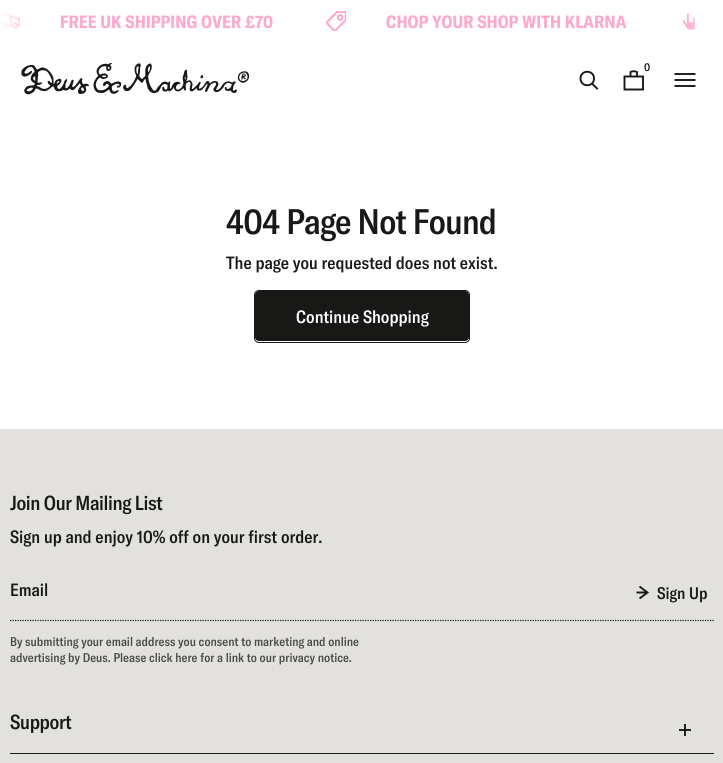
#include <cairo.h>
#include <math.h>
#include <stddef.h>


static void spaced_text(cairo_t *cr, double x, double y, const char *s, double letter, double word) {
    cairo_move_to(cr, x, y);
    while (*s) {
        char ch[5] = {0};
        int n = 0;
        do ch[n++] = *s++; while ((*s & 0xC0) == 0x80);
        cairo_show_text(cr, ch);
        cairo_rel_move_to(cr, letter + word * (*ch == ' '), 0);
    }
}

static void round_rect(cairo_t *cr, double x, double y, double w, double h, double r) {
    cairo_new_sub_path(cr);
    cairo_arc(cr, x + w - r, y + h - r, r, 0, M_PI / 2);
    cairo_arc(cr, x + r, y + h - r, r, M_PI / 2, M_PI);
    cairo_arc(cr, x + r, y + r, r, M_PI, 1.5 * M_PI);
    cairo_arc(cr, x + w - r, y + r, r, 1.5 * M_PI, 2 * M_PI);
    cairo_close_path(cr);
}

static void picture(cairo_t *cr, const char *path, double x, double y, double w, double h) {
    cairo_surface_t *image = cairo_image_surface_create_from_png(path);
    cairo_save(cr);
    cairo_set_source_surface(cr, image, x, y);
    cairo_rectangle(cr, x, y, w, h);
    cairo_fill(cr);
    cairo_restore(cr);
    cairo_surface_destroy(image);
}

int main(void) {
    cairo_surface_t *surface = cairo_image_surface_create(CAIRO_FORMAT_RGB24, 723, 763);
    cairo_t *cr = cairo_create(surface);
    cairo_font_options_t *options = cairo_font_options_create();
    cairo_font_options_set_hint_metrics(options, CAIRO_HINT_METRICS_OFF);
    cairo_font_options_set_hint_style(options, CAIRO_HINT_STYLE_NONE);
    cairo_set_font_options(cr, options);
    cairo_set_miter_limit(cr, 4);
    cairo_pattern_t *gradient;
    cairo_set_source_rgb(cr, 1, 1, 1);
    cairo_paint(cr);
    picture(cr, "img1.png", 0, 14, 20, 15);
    gradient = cairo_pattern_create_linear(0, 21, 40, 21);
    cairo_pattern_add_color_stop_rgba(gradient, 0, 1, 1, 1, 1);
    cairo_pattern_add_color_stop_rgba(gradient, 1, 1, 1, 1, 0);
    cairo_set_source(cr, gradient);
    cairo_pattern_destroy(gradient);
    cairo_rectangle(cr, 0, 14, 20, 15);
    cairo_fill(cr);
    cairo_select_font_face(cr, "GT America", CAIRO_FONT_SLANT_NORMAL, CAIRO_FONT_WEIGHT_BOLD);
    cairo_set_font_size(cr, 17.5);
    cairo_set_source_rgb(cr, 1, 0.659, 0.804);
    cairo_move_to(cr, 60, 28);
    cairo_show_text(cr, "FREE UK SHIPPING OVER £70");
    picture(cr, "img2.png", 326, 11, 20, 20);
    cairo_move_to(cr, 386, 28);
    cairo_show_text(cr, "CHOP YOUR SHOP WITH KLARNA");
    picture(cr, "img3.png", 682, 13, 13, 17);
    gradient = cairo_pattern_create_linear(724, 21, 684, 21);
    cairo_pattern_add_color_stop_rgba(gradient, 0, 1, 1, 1, 1);
    cairo_pattern_add_color_stop_rgba(gradient, 1, 1, 1, 1, 0);
    cairo_set_source(cr, gradient);
    cairo_pattern_destroy(gradient);
    cairo_rectangle(cr, 685, 14, 10, 16);
    cairo_fill(cr);
    picture(cr, "img4.png", 21, 63, 229, 32);
    cairo_select_font_face(cr, "GT America Medium", CAIRO_FONT_SLANT_NORMAL, CAIRO_FONT_WEIGHT_NORMAL);
    cairo_set_font_size(cr, 11);
    cairo_set_source_rgb(cr, 0.094, 0.094, 0.09);
    cairo_move_to(cr, 644, 71);
    cairo_show_text(cr, "0");
    cairo_new_path(cr);
    cairo_move_to(cr, 624.5, 89.5);
    cairo_line_to(cr, 624.5, 76.5);
    cairo_line_to(cr, 643, 76.5);
    cairo_line_to(cr, 643, 89.5);
    cairo_close_path(cr);
    cairo_move_to(cr, 630.5, 76);
    cairo_line_to(cr, 630.5, 72);
    cairo_curve_to(cr, 632.5, 71, 635, 71, 637, 72);
    cairo_line_to(cr, 637, 76);
    cairo_set_line_width(cr, 1.9);
    cairo_stroke(cr);
    cairo_new_path(cr);
    cairo_move_to(cr, 597, 88.5);
    cairo_line_to(cr, 592.5, 84);
    cairo_move_to(cr, 594, 78.5);
    cairo_curve_to(cr, 594, 87.5, 580.5, 87.5, 580.5, 78.5);
    cairo_curve_to(cr, 580.5, 69.5, 594, 69.5, 594, 78.5);
    cairo_close_path(cr);
    cairo_set_line_cap(cr, CAIRO_LINE_CAP_SQUARE);
    cairo_stroke(cr);
    cairo_new_path(cr);
    cairo_move_to(cr, 695.5, 74);
    cairo_line_to(cr, 674.5, 74);
    cairo_move_to(cr, 695.5, 86);
    cairo_line_to(cr, 674.5, 86);
    cairo_move_to(cr, 695.5, 80);
    cairo_line_to(cr, 674.5, 80);
    cairo_set_line_cap(cr, CAIRO_LINE_CAP_BUTT);
    cairo_stroke(cr);
    cairo_set_font_size(cr, 35);
    spaced_text(cr, 226, 234, "404 Page Not Found", -0.75, 0);
    cairo_set_font_size(cr, 17.5);
    cairo_move_to(cr, 226, 269);
    cairo_show_text(cr, "The page you requested does not exist.");
    round_rect(cr, 254.5, 290.5, 215, 52, 4.5);
    cairo_set_line_width(cr, 1);
    cairo_stroke(cr);
    round_rect(cr, 255, 291, 214, 50, 4);
    cairo_fill(cr);
    cairo_set_source_rgb(cr, 1, 1, 1);
    cairo_move_to(cr, 296, 323);
    cairo_show_text(cr, "Continue Shopping");
    cairo_set_source_rgb(cr, 0.886, 0.882, 0.867);
    cairo_rectangle(cr, 0, 429, 723, 334);
    cairo_fill(cr);
    cairo_set_font_size(cr, 20);
    cairo_set_source_rgb(cr, 0.094, 0.094, 0.09);
    spaced_text(cr, 10, 510, "Join Our Mailing List", -0.4, 0);
    cairo_set_font_size(cr, 17.5);
    cairo_move_to(cr, 10, 543);
    cairo_show_text(cr, "Sign up and enjoy 10% off on your first order.");
    cairo_move_to(cr, 10, 596);
    cairo_show_text(cr, "Email");
    cairo_new_path(cr);
    cairo_move_to(cr, 639.5, 598.5);
    cairo_line_to(cr, 647.5, 592.5);
    cairo_line_to(cr, 639.5, 586.5);
    cairo_move_to(cr, 636.5, 592.5);
    cairo_line_to(cr, 647.5, 592.5);
    cairo_set_line_width(cr, 1.9);
    cairo_stroke(cr);
    cairo_set_font_size(cr, 16.5);
    cairo_move_to(cr, 657, 599);
    cairo_show_text(cr, "Sign Up");
    cairo_new_path(cr);
    cairo_move_to(cr, 10, 620.5);
    cairo_line_to(cr, 714, 620.5);
    cairo_set_line_width(cr, 1.2);
    cairo_set_dash(cr, (double[]){1.25, 1.25}, 2, 0);
    cairo_stroke(cr);
    cairo_set_font_size(cr, 12.5);
    cairo_set_source_rgb(cr, 0.294, 0.29, 0.286);
    cairo_move_to(cr, 10, 646);
    cairo_show_text(cr, "By submitting your email address you consent to marketing and online");
    cairo_move_to(cr, 10, 662);
    cairo_show_text(cr, "advertising by Deus. Please click here for a link to our privacy notice.");
    cairo_set_source_rgb(cr, 0.094, 0.094, 0.09);
    cairo_rectangle(cr, 10, 753, 704, 1);
    cairo_fill(cr);
    cairo_set_font_size(cr, 20);
    spaced_text(cr, 10, 729, "Support", -0.4, 0);
    cairo_new_path(cr);
    cairo_move_to(cr, 685, 724);
    cairo_line_to(cr, 685, 736);
    cairo_move_to(cr, 679, 730);
    cairo_line_to(cr, 691, 730);
    cairo_set_line_width(cr, 1.9);
    cairo_set_dash(cr, NULL, 0, 0);
    cairo_stroke(cr);
    cairo_surface_write_to_png(surface, "page.png");
    cairo_font_options_destroy(options);
    cairo_destroy(cr);
    cairo_surface_destroy(surface);
    return 0;
}
